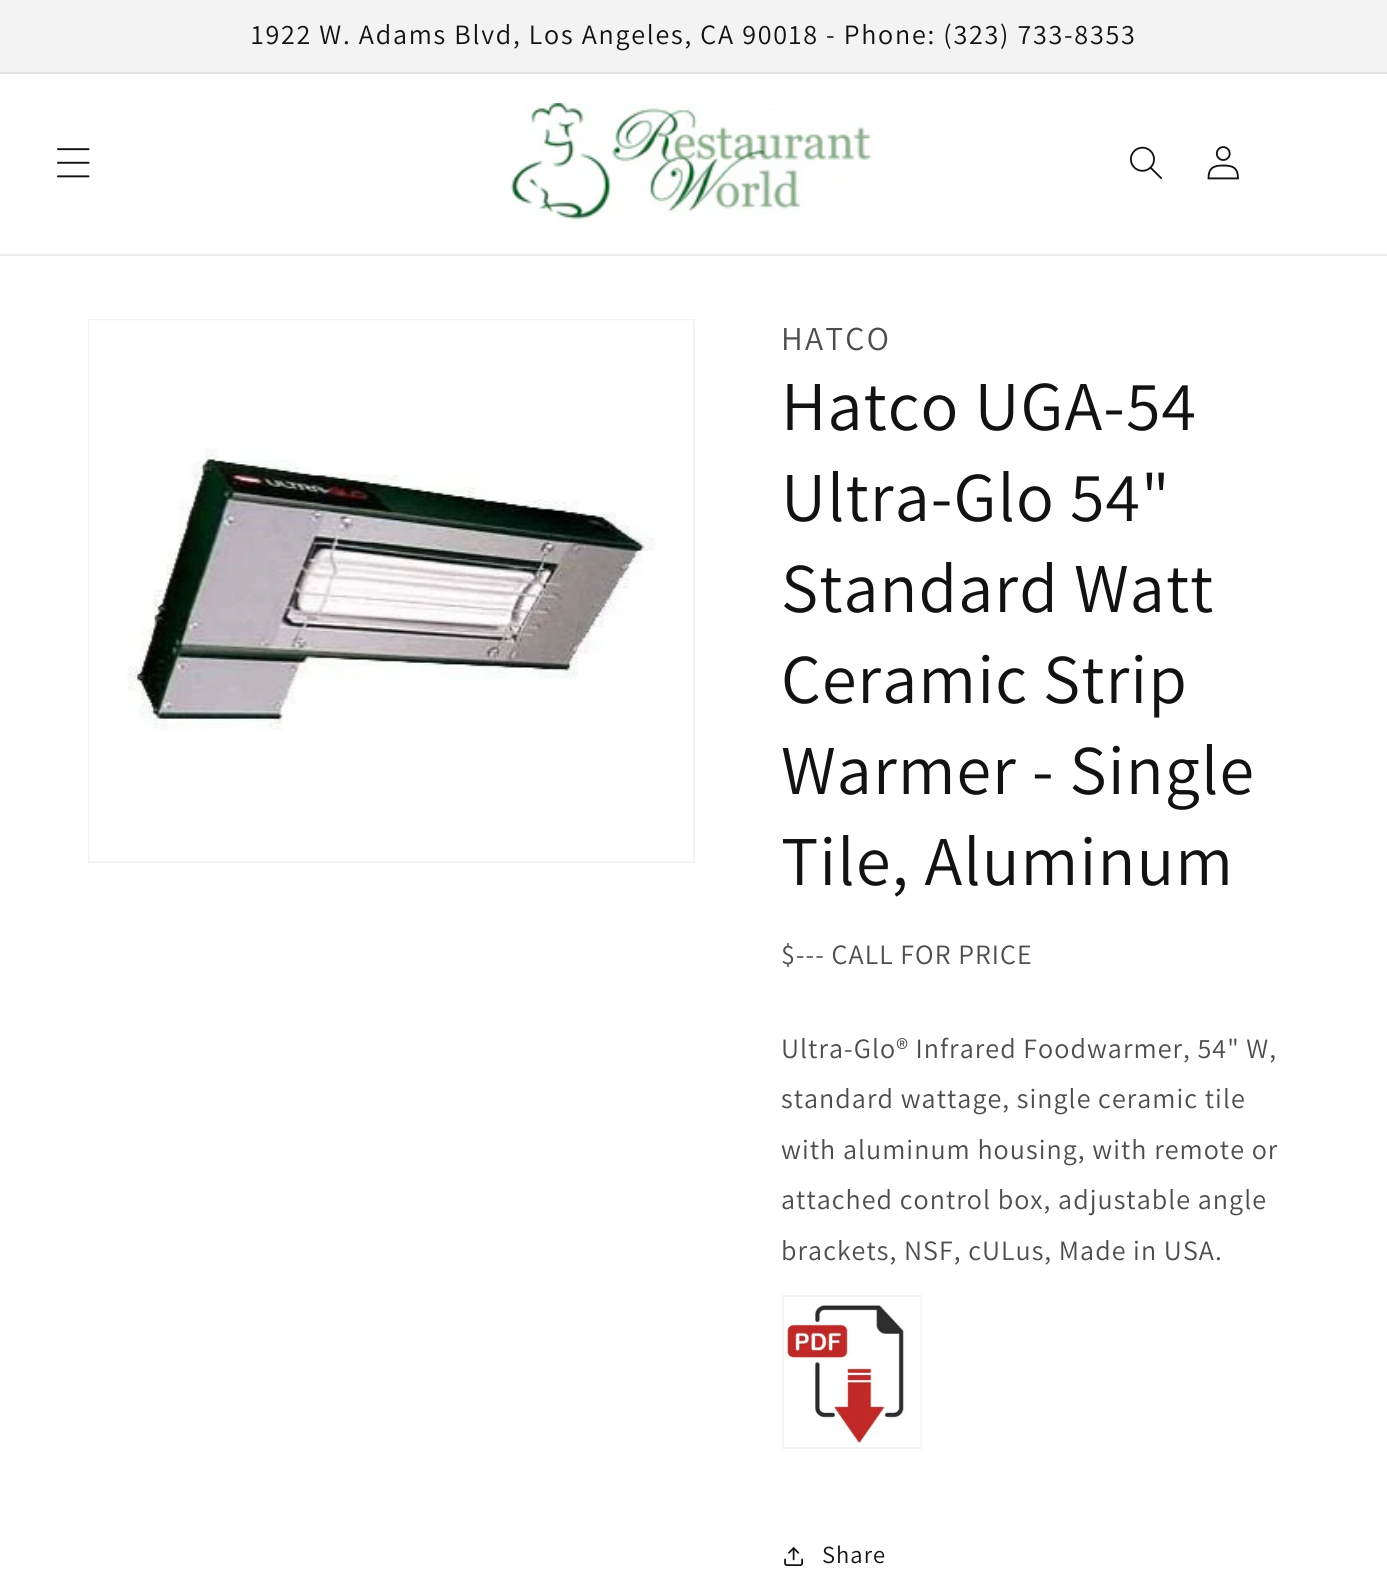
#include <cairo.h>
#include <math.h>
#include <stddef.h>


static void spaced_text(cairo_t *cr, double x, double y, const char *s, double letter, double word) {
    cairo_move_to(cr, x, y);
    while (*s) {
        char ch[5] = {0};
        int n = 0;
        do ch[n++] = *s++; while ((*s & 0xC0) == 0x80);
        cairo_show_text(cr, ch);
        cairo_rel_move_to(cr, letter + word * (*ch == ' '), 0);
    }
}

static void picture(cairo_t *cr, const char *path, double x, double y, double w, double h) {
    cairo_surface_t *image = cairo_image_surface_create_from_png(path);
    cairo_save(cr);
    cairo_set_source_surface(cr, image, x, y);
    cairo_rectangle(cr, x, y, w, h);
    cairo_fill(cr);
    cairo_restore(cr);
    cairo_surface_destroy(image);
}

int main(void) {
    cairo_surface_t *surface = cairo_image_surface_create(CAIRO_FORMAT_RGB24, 1387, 1593);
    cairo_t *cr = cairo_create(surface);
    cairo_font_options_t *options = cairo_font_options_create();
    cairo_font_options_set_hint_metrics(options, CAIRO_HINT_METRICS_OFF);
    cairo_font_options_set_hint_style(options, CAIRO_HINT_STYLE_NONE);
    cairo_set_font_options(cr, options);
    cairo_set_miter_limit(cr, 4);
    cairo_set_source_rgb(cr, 1, 1, 1);
    cairo_paint(cr);
    cairo_set_source_rgb(cr, 0.953, 0.953, 0.953);
    cairo_rectangle(cr, 0, 0, 1387, 72);
    cairo_fill(cr);
    cairo_set_source_rgb(cr, 0.882, 0.882, 0.882);
    cairo_rectangle(cr, 0, 72, 1387, 2);
    cairo_fill(cr);
    cairo_select_font_face(cr, "Assistant", CAIRO_FONT_SLANT_NORMAL, CAIRO_FONT_WEIGHT_NORMAL);
    cairo_set_font_size(cr, 28);
    cairo_set_source_rgb(cr, 0.071, 0.071, 0.071);
    spaced_text(cr, 251, 44, "1922 W. Adams Blvd, Los Angeles, CA 90018 - Phone: (323) 733-8353", 1.75, 0);
    cairo_set_source_rgb(cr, 0.925, 0.925, 0.925);
    cairo_rectangle(cr, 0, 254, 1387, 2);
    cairo_fill(cr);
    picture(cr, "img1.png", 57, 148, 33, 30);
    picture(cr, "img2.png", 510, 103, 365, 119);
    picture(cr, "img3.png", 1130, 146, 32, 34);
    picture(cr, "img4.png", 1207, 146, 32, 34);
    cairo_rectangle(cr, 89, 320, 605, 542);
    cairo_set_source_rgb(cr, 0.953, 0.953, 0.953);
    cairo_stroke(cr);
    picture(cr, "img5.png", 89, 320, 604, 541);
    cairo_set_font_size(cr, 33.5);
    cairo_set_source_rgb(cr, 0.302, 0.302, 0.302);
    spaced_text(cr, 781, 350, "HATCO", 2.25, 0);
    cairo_set_font_size(cr, 70);
    cairo_set_source_rgb(cr, 0.071, 0.071, 0.071);
    spaced_text(cr, 781, 430, "Hatco UGA-54", 1.05, 0);
    spaced_text(cr, 781, 521, "Ultra-Glo 54\"", 1.05, 0);
    spaced_text(cr, 781, 612, "Standard Watt", 1.05, 0);
    spaced_text(cr, 781, 703, "Ceramic Strip", 1.05, 0);
    spaced_text(cr, 781, 794, "Warmer - Single", 1.05, 0);
    spaced_text(cr, 781, 885, "Tile, Aluminum", 1.05, 0);
    cairo_set_font_size(cr, 28);
    cairo_set_source_rgb(cr, 0.302, 0.302, 0.302);
    spaced_text(cr, 781, 964, "$--- CALL FOR PRICE", 1.05, 0);
    spaced_text(cr, 781, 1058, "Ultra-Glo® Infrared Foodwarmer, 54\" W,", 1.05, 0);
    spaced_text(cr, 781, 1108, "standard wattage, single ceramic tile", 1.05, 0);
    spaced_text(cr, 781, 1159, "with aluminum housing, with remote or", 1.05, 0);
    spaced_text(cr, 781, 1209, "attached control box, adjustable angle", 1.05, 0);
    spaced_text(cr, 781, 1260, "brackets, NSF, cULus, Made in USA.", 1.05, 0);
    cairo_rectangle(cr, 783, 1296, 138, 152);
    cairo_set_source_rgb(cr, 0.953, 0.953, 0.953);
    cairo_stroke(cr);
    picture(cr, "img6.png", 784, 1297, 137, 150);
    picture(cr, "img7.png", 784, 1547, 20, 19);
    cairo_set_font_size(cr, 24.5);
    cairo_set_source_rgb(cr, 0.071, 0.071, 0.071);
    spaced_text(cr, 822, 1563, "Share", 1.05, 0);
    cairo_surface_write_to_png(surface, "page.png");
    cairo_font_options_destroy(options);
    cairo_destroy(cr);
    cairo_surface_destroy(surface);
    return 0;
}
